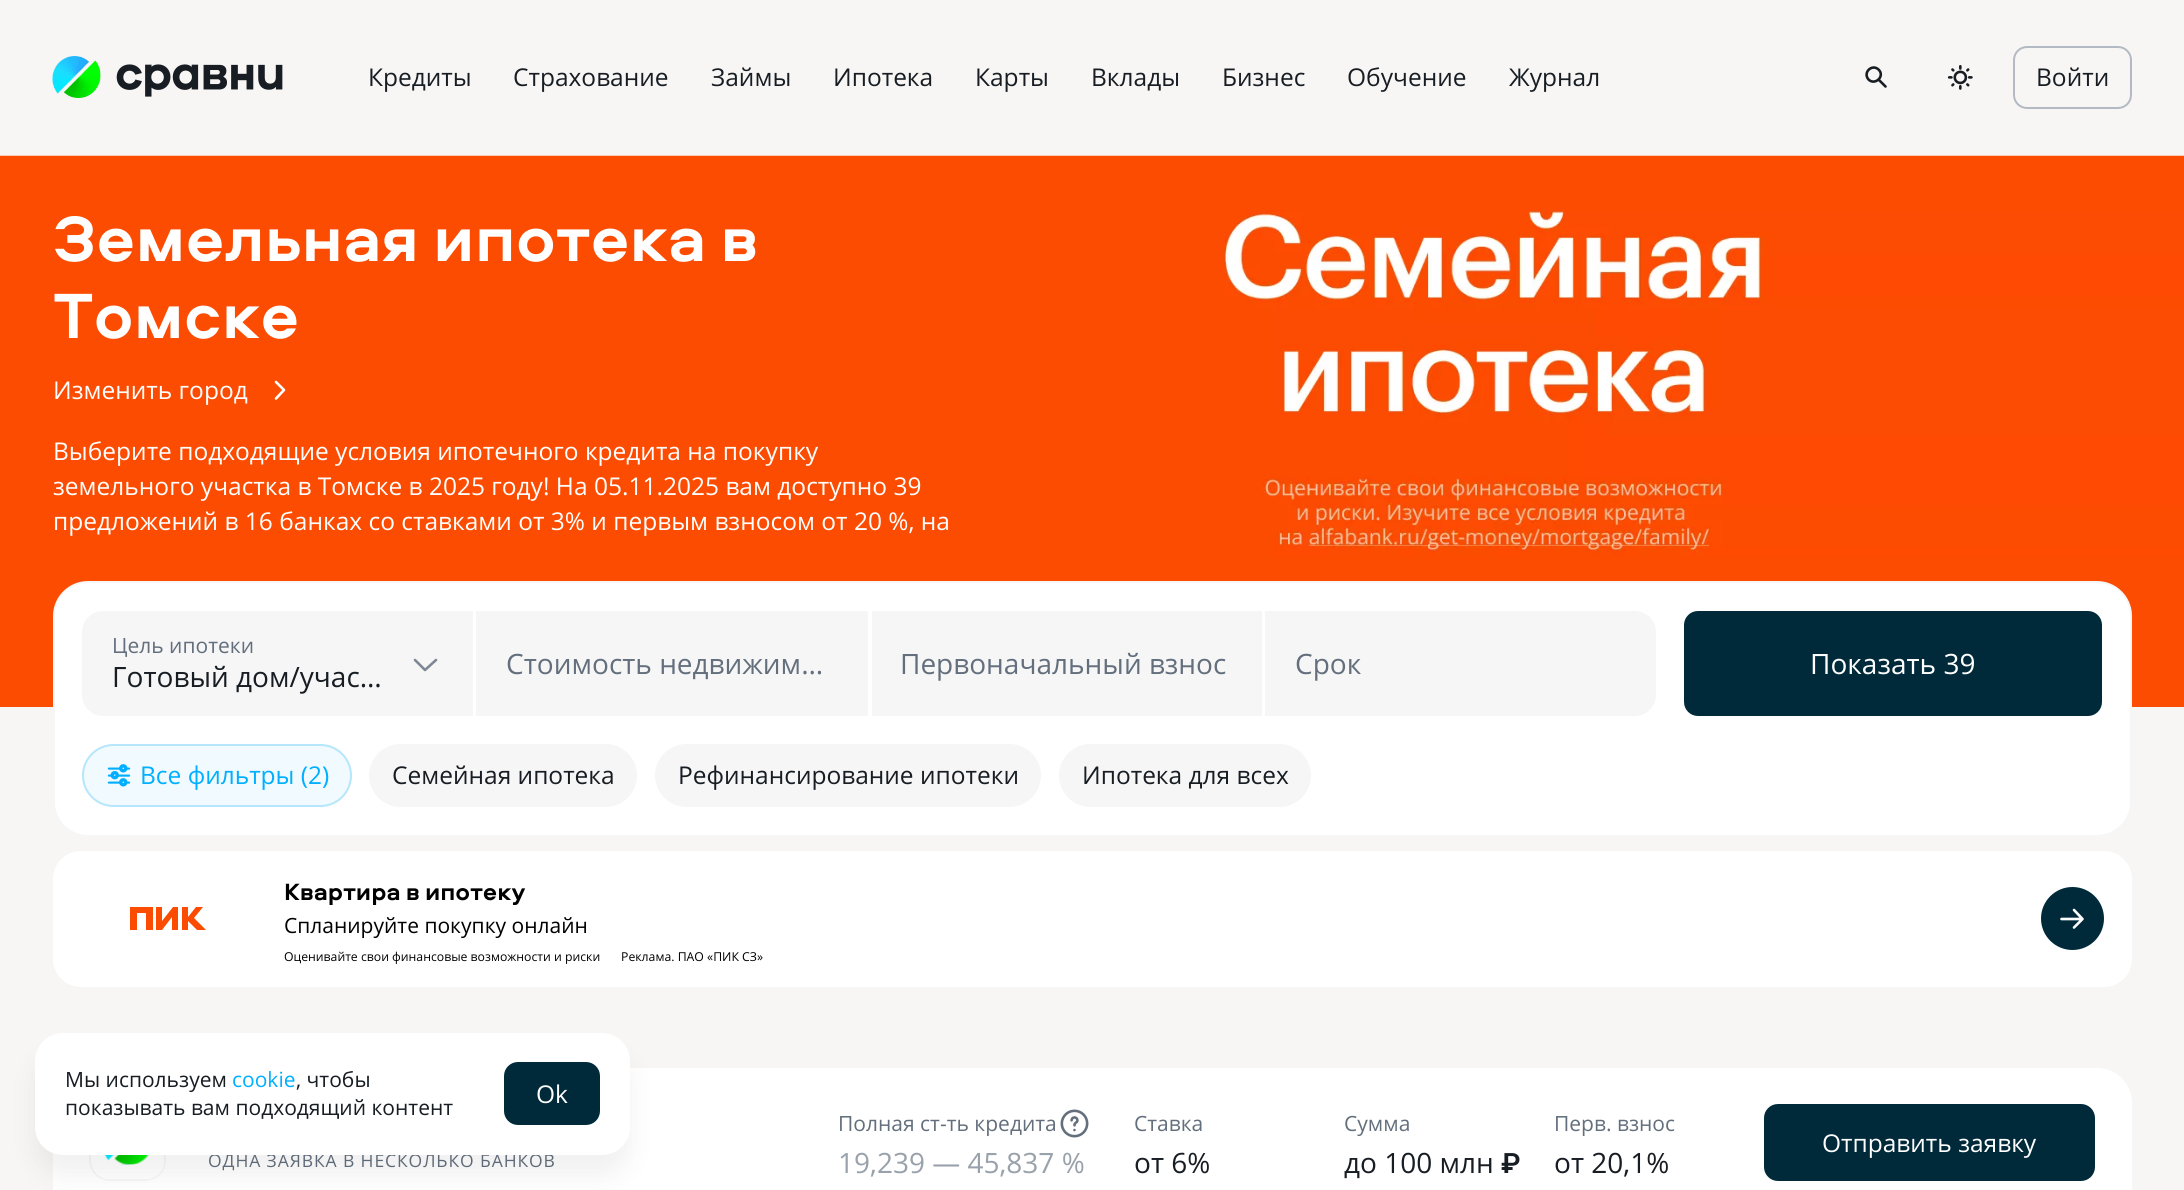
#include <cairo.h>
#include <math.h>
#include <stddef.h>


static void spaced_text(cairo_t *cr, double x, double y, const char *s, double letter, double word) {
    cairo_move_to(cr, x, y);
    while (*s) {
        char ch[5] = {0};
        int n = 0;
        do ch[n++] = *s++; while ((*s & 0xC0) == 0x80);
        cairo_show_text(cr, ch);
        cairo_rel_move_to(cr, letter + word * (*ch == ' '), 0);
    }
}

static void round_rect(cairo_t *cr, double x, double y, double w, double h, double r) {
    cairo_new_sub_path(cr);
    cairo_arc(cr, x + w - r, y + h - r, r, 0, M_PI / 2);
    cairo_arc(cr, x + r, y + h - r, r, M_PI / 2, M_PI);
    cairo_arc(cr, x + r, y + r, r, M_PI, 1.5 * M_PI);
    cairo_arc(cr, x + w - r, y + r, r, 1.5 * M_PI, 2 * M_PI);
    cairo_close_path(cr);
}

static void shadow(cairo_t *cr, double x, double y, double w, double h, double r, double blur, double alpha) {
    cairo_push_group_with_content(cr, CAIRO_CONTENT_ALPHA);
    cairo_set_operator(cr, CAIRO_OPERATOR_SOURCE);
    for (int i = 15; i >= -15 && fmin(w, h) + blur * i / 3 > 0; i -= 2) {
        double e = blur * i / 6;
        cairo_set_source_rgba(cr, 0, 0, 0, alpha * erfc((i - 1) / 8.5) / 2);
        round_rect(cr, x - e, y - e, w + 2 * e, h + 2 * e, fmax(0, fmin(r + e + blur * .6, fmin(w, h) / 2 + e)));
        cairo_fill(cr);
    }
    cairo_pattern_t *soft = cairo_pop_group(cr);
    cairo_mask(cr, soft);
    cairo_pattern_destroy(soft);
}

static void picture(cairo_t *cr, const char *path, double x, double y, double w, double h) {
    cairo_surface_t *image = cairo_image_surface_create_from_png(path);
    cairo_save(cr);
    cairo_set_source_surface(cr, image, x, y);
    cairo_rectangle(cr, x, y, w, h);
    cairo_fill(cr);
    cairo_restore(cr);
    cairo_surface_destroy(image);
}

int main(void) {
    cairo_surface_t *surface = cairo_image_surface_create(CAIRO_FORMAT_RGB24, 2184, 1190);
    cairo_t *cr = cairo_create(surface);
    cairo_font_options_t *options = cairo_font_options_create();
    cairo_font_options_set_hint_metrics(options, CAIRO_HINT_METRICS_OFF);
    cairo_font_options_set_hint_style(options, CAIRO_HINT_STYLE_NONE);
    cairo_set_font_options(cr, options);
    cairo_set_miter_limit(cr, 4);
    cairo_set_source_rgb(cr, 0.965, 0.961, 0.957);
    cairo_paint(cr);
    picture(cr, "img1.png", 52, 56, 49, 42);
    picture(cr, "img2.png", 116, 64, 167, 33);
    cairo_select_font_face(cr, "Open Sans", CAIRO_FONT_SLANT_NORMAL, CAIRO_FONT_WEIGHT_NORMAL);
    cairo_set_font_size(cr, 24.5);
    cairo_set_source_rgb(cr, 0.09, 0.114, 0.137);
    cairo_move_to(cr, 368, 86);
    cairo_show_text(cr, "Кредиты");
    cairo_move_to(cr, 513, 86);
    cairo_show_text(cr, "Страхование");
    cairo_move_to(cr, 711, 86);
    cairo_show_text(cr, "Займы");
    cairo_move_to(cr, 833, 86);
    cairo_show_text(cr, "Ипотека");
    cairo_move_to(cr, 975, 86);
    cairo_show_text(cr, "Карты");
    cairo_move_to(cr, 1091, 86);
    cairo_show_text(cr, "Вклады");
    cairo_move_to(cr, 1222, 86);
    cairo_show_text(cr, "Бизнес");
    cairo_move_to(cr, 1347, 86);
    cairo_show_text(cr, "Обучение");
    cairo_move_to(cr, 1509, 86);
    cairo_show_text(cr, "Журнал");
    cairo_new_path(cr);
    cairo_move_to(cr, 1878.5, 69.5);
    cairo_curve_to(cr, 1885.5, 76, 1875, 86, 1868.5, 79.5);
    cairo_curve_to(cr, 1862.5, 72.5, 1872, 63.5, 1878.5, 69.5);
    cairo_close_path(cr);
    cairo_move_to(cr, 1878.5, 79.5);
    cairo_line_to(cr, 1885.5, 86.5);
    cairo_set_line_width(cr, 2.6);
    cairo_set_line_cap(cr, CAIRO_LINE_CAP_ROUND);
    cairo_set_line_join(cr, CAIRO_LINE_JOIN_ROUND);
    cairo_stroke(cr);
    picture(cr, "img3.png", 1947, 65, 26, 25);
    round_rect(cr, 2014, 47, 117, 61, 13);
    cairo_set_source_rgb(cr, 0.702, 0.729, 0.765);
    cairo_set_line_width(cr, 2);
    cairo_set_line_cap(cr, CAIRO_LINE_CAP_BUTT);
    cairo_set_line_join(cr, CAIRO_LINE_JOIN_MITER);
    cairo_stroke(cr);
    cairo_set_source_rgb(cr, 0.09, 0.114, 0.137);
    cairo_move_to(cr, 2036, 86);
    cairo_show_text(cr, "Войти");
    cairo_set_source_rgb(cr, 0.988, 0.298, 0.004);
    cairo_rectangle(cr, 0, 555, 2184, 152);
    cairo_fill(cr);
    picture(cr, "img4.png", 0, 155, 2184, 400);
    cairo_select_font_face(cr, "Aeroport", CAIRO_FONT_SLANT_NORMAL, CAIRO_FONT_WEIGHT_BOLD);
    cairo_set_font_size(cr, 66.5);
    cairo_set_source_rgb(cr, 1, 1, 1);
    cairo_move_to(cr, 53, 261);
    cairo_show_text(cr, "Земельная ипотека в");
    cairo_move_to(cr, 53, 338);
    cairo_show_text(cr, "Томске");
    cairo_select_font_face(cr, "Open Sans", CAIRO_FONT_SLANT_NORMAL, CAIRO_FONT_WEIGHT_NORMAL);
    cairo_set_font_size(cr, 24.5);
    cairo_move_to(cr, 53, 399);
    cairo_show_text(cr, "Изменить город");
    cairo_new_path(cr);
    cairo_move_to(cr, 276, 398.5);
    cairo_line_to(cr, 284, 390);
    cairo_line_to(cr, 276, 382);
    cairo_set_line_width(cr, 2.6);
    cairo_set_line_cap(cr, CAIRO_LINE_CAP_ROUND);
    cairo_set_line_join(cr, CAIRO_LINE_JOIN_ROUND);
    cairo_stroke(cr);
    cairo_move_to(cr, 53, 460);
    cairo_show_text(cr, "Выберите подходящие условия ипотечного кредита на покупку");
    cairo_move_to(cr, 53, 495);
    cairo_show_text(cr, "земельного участка в Томске в 2025 году! На 05.11.2025 вам доступно 39");
    cairo_move_to(cr, 53, 530);
    cairo_show_text(cr, "предложений в 16 банках со ставками от 3% и первым взносом от 20 %, на");
    round_rect(cr, 54, 582, 2077, 254, 34);
    cairo_fill_preserve(cr);
    cairo_set_source_rgb(cr, 0.961, 0.961, 0.961);
    cairo_set_line_width(cr, 2);
    cairo_set_line_cap(cr, CAIRO_LINE_CAP_BUTT);
    cairo_set_line_join(cr, CAIRO_LINE_JOIN_MITER);
    cairo_stroke(cr);
    cairo_new_path(cr);
    cairo_move_to(cr, 103, 611);
    cairo_line_to(cr, 473, 611);
    cairo_line_to(cr, 473, 716);
    cairo_line_to(cr, 103, 716);
    cairo_curve_to(cr, 91.5, 716, 82, 706.5, 82, 695);
    cairo_line_to(cr, 82, 632);
    cairo_curve_to(cr, 82, 620.5, 91.5, 611, 103, 611);
    cairo_close_path(cr);
    cairo_fill(cr);
    cairo_set_font_size(cr, 21);
    cairo_set_source_rgb(cr, 0.388, 0.435, 0.49);
    cairo_move_to(cr, 112, 653);
    cairo_show_text(cr, "Цель ипотеки");
    cairo_set_font_size(cr, 28);
    cairo_set_source_rgb(cr, 0.09, 0.114, 0.137);
    cairo_move_to(cr, 112, 687);
    cairo_show_text(cr, "Готовый дом/учас…");
    cairo_new_path(cr);
    cairo_move_to(cr, 415, 660);
    cairo_line_to(cr, 425, 670);
    cairo_line_to(cr, 436, 660);
    cairo_set_source_rgb(cr, 0.494, 0.533, 0.58);
    cairo_set_line_width(cr, 2.6);
    cairo_set_line_cap(cr, CAIRO_LINE_CAP_ROUND);
    cairo_set_line_join(cr, CAIRO_LINE_JOIN_ROUND);
    cairo_stroke(cr);
    cairo_set_source_rgb(cr, 0.961, 0.961, 0.961);
    cairo_rectangle(cr, 476, 611, 392, 105);
    cairo_fill(cr);
    cairo_set_source_rgb(cr, 0.388, 0.435, 0.49);
    cairo_move_to(cr, 506, 674);
    cairo_show_text(cr, "Стоимость недвижим…");
    cairo_set_source_rgb(cr, 0.961, 0.961, 0.961);
    cairo_rectangle(cr, 872, 611, 390, 105);
    cairo_fill(cr);
    cairo_set_source_rgb(cr, 0.388, 0.435, 0.49);
    cairo_move_to(cr, 900, 674);
    cairo_show_text(cr, "Первоначальный взнос");
    cairo_set_source_rgb(cr, 0.961, 0.961, 0.961);
    cairo_new_path(cr);
    cairo_move_to(cr, 1265, 611);
    cairo_line_to(cr, 1635, 611);
    cairo_curve_to(cr, 1646.5, 611, 1656, 620.5, 1656, 632);
    cairo_line_to(cr, 1656, 695);
    cairo_curve_to(cr, 1656, 706.5, 1646.5, 716, 1635, 716);
    cairo_line_to(cr, 1265, 716);
    cairo_close_path(cr);
    cairo_fill(cr);
    cairo_set_source_rgb(cr, 0.388, 0.435, 0.49);
    cairo_move_to(cr, 1295, 674);
    cairo_show_text(cr, "Срок");
    cairo_set_source_rgb(cr, 0, 0.165, 0.227);
    round_rect(cr, 1684, 611, 418, 105, 14);
    cairo_fill(cr);
    cairo_set_source_rgb(cr, 1, 1, 1);
    cairo_move_to(cr, 1810, 674);
    cairo_show_text(cr, "Показать 39");
    cairo_set_source_rgb(cr, 0.941, 0.98, 1);
    round_rect(cr, 83, 745, 268, 61, 30.5);
    cairo_fill_preserve(cr);
    cairo_set_source_rgb(cr, 0.714, 0.902, 0.988);
    cairo_set_line_width(cr, 2);
    cairo_set_line_cap(cr, CAIRO_LINE_CAP_BUTT);
    cairo_set_line_join(cr, CAIRO_LINE_JOIN_MITER);
    cairo_stroke(cr);
    picture(cr, "img5.png", 107, 764, 24, 23);
    cairo_set_font_size(cr, 24.5);
    cairo_set_source_rgb(cr, 0, 0.686, 1);
    cairo_move_to(cr, 140, 784);
    cairo_show_text(cr, "Все фильтры (2)");
    cairo_set_source_rgb(cr, 0.961, 0.961, 0.961);
    round_rect(cr, 370, 745, 266, 61, 30.5);
    cairo_fill_preserve(cr);
    cairo_stroke(cr);
    cairo_set_source_rgb(cr, 0.09, 0.114, 0.137);
    cairo_move_to(cr, 392, 784);
    cairo_show_text(cr, "Семейная ипотека");
    cairo_set_source_rgb(cr, 0.961, 0.961, 0.961);
    round_rect(cr, 656, 745, 384, 61, 30.5);
    cairo_fill_preserve(cr);
    cairo_stroke(cr);
    cairo_set_source_rgb(cr, 0.09, 0.114, 0.137);
    cairo_move_to(cr, 678, 784);
    cairo_show_text(cr, "Рефинансирование ипотеки");
    cairo_set_source_rgb(cr, 0.961, 0.961, 0.961);
    round_rect(cr, 1060, 745, 250, 61, 30.5);
    cairo_fill_preserve(cr);
    cairo_stroke(cr);
    cairo_set_source_rgb(cr, 0.09, 0.114, 0.137);
    cairo_move_to(cr, 1082, 784);
    cairo_show_text(cr, "Ипотека для всех");
    cairo_set_source_rgb(cr, 1, 1, 1);
    round_rect(cr, 53, 851, 2079, 136, 28);
    cairo_fill(cr);
    cairo_set_source_rgb(cr, 0.988, 0.298, 0.008);
    cairo_new_path(cr);
    cairo_move_to(cr, 130, 930);
    cairo_line_to(cr, 130, 907);
    cairo_line_to(cr, 153, 907);
    cairo_line_to(cr, 153, 930);
    cairo_line_to(cr, 146, 930);
    cairo_line_to(cr, 146, 913);
    cairo_line_to(cr, 137, 913);
    cairo_line_to(cr, 137, 930);
    cairo_close_path(cr);
    cairo_move_to(cr, 172, 917);
    cairo_line_to(cr, 162, 930);
    cairo_line_to(cr, 156, 930);
    cairo_line_to(cr, 156, 907);
    cairo_line_to(cr, 162, 907);
    cairo_line_to(cr, 162, 921);
    cairo_line_to(cr, 173, 907);
    cairo_line_to(cr, 178, 907);
    cairo_line_to(cr, 178, 930);
    cairo_line_to(cr, 172, 930);
    cairo_close_path(cr);
    cairo_move_to(cr, 188, 921);
    cairo_line_to(cr, 188, 930);
    cairo_line_to(cr, 182, 930);
    cairo_line_to(cr, 182, 907);
    cairo_line_to(cr, 188, 907);
    cairo_line_to(cr, 188, 917);
    cairo_line_to(cr, 196, 907);
    cairo_line_to(cr, 203, 907);
    cairo_line_to(cr, 194, 918);
    cairo_line_to(cr, 206, 930);
    cairo_line_to(cr, 197, 930);
    cairo_close_path(cr);
    cairo_fill(cr);
    cairo_select_font_face(cr, "Aeroport", CAIRO_FONT_SLANT_NORMAL, CAIRO_FONT_WEIGHT_BOLD);
    cairo_set_source_rgb(cr, 0, 0, 0);
    cairo_move_to(cr, 284, 900);
    cairo_show_text(cr, "Квартира в ипотеку");
    cairo_select_font_face(cr, "Open Sans", CAIRO_FONT_SLANT_NORMAL, CAIRO_FONT_WEIGHT_NORMAL);
    cairo_set_font_size(cr, 21);
    cairo_move_to(cr, 284, 933);
    cairo_show_text(cr, "Спланируйте покупку онлайн");
    cairo_set_font_size(cr, 12.25);
    cairo_move_to(cr, 284, 961);
    cairo_show_text(cr, "Оценивайте свои финансовые возможности и риски");
    cairo_move_to(cr, 621, 961);
    cairo_show_text(cr, "Реклама. ПАО «ПИК СЗ»");
    cairo_set_source_rgb(cr, 0, 0.165, 0.227);
    cairo_new_path(cr);
    cairo_arc(cr, 2072.5, 918.5, 31.5, 0, 2 * M_PI);
    cairo_fill(cr);
    cairo_new_path(cr);
    cairo_move_to(cr, 2074, 927.5);
    cairo_line_to(cr, 2082.5, 919);
    cairo_line_to(cr, 2074, 910);
    cairo_move_to(cr, 2081, 919);
    cairo_line_to(cr, 2061.5, 919);
    cairo_set_source_rgb(cr, 1, 1, 1);
    cairo_set_line_width(cr, 2.6);
    cairo_set_line_cap(cr, CAIRO_LINE_CAP_ROUND);
    cairo_set_line_join(cr, CAIRO_LINE_JOIN_ROUND);
    cairo_stroke(cr);
    round_rect(cr, 53, 1068, 2079, 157, 35);
    cairo_fill(cr);
    round_rect(cr, 90, 1105, 75, 75, 20);
    cairo_set_source_rgb(cr, 0.965, 0.961, 0.957);
    cairo_set_line_width(cr, 2);
    cairo_set_line_cap(cr, CAIRO_LINE_CAP_BUTT);
    cairo_set_line_join(cr, CAIRO_LINE_JOIN_MITER);
    cairo_stroke(cr);
    picture(cr, "img6.png", 96, 1155, 68, 24);
    cairo_set_font_size(cr, 21);
    cairo_set_source_rgb(cr, 0.388, 0.435, 0.49);
    cairo_move_to(cr, 838, 1131);
    cairo_show_text(cr, "Полная ст-ть кредита");
    picture(cr, "img7.png", 1060, 1109, 29, 29);
    cairo_set_font_size(cr, 28);
    cairo_set_source_rgb(cr, 0.6, 0.631, 0.671);
    cairo_move_to(cr, 838, 1173);
    cairo_show_text(cr, "19,239 — 45,837 %");
    cairo_set_font_size(cr, 21);
    cairo_set_source_rgb(cr, 0.388, 0.435, 0.49);
    cairo_move_to(cr, 1134, 1131);
    cairo_show_text(cr, "Ставка");
    cairo_set_font_size(cr, 28);
    cairo_set_source_rgb(cr, 0.09, 0.114, 0.137);
    cairo_move_to(cr, 1134, 1173);
    cairo_show_text(cr, "от 6%");
    cairo_set_font_size(cr, 21);
    cairo_set_source_rgb(cr, 0.388, 0.435, 0.49);
    cairo_move_to(cr, 1344, 1131);
    cairo_show_text(cr, "Сумма");
    cairo_set_font_size(cr, 28);
    cairo_set_source_rgb(cr, 0.09, 0.114, 0.137);
    cairo_move_to(cr, 1344, 1173);
    cairo_show_text(cr, "до 100 млн");
    cairo_select_font_face(cr, "Roboto SemiBold", CAIRO_FONT_SLANT_NORMAL, CAIRO_FONT_WEIGHT_NORMAL);
    cairo_move_to(cr, 1501, 1173);
    cairo_show_text(cr, "₽");
    cairo_select_font_face(cr, "Open Sans", CAIRO_FONT_SLANT_NORMAL, CAIRO_FONT_WEIGHT_NORMAL);
    cairo_set_font_size(cr, 21);
    cairo_set_source_rgb(cr, 0.388, 0.435, 0.49);
    cairo_move_to(cr, 1554, 1131);
    cairo_show_text(cr, "Перв. взнос");
    cairo_set_font_size(cr, 28);
    cairo_set_source_rgb(cr, 0.09, 0.114, 0.137);
    cairo_move_to(cr, 1554, 1173);
    cairo_show_text(cr, "от 20,1%");
    cairo_set_source_rgb(cr, 0, 0.165, 0.227);
    round_rect(cr, 1764, 1104, 331, 77, 14);
    cairo_fill(cr);
    cairo_set_font_size(cr, 24.5);
    cairo_set_source_rgb(cr, 1, 1, 1);
    cairo_move_to(cr, 1822, 1152);
    cairo_show_text(cr, "Отправить заявку");
    cairo_set_font_size(cr, 17.5);
    cairo_set_source_rgb(cr, 0.388, 0.435, 0.49);
    spaced_text(cr, 208, 1167, "ОДНА ЗАЯВКА В НЕСКОЛЬКО БАНКОВ", 0.9, 0);
    cairo_set_source_rgb(cr, 0, 0, 0);
    shadow(cr, 35, 1054, 595, 122, 28, 14, 0.06);
    cairo_set_source_rgb(cr, 1, 1, 1);
    round_rect(cr, 36, 1034, 593, 120, 27);
    cairo_fill_preserve(cr);
    cairo_stroke(cr);
    cairo_set_font_size(cr, 21);
    cairo_set_source_rgb(cr, 0.09, 0.114, 0.137);
    cairo_move_to(cr, 65, 1087);
    cairo_show_text(cr, "Мы используем");
    cairo_set_source_rgb(cr, 0, 0.686, 1);
    cairo_move_to(cr, 232, 1087);
    cairo_show_text(cr, "cookie");
    cairo_set_source_rgb(cr, 0.09, 0.114, 0.137);
    cairo_move_to(cr, 296, 1087);
    cairo_show_text(cr, ", чтобы");
    cairo_move_to(cr, 65, 1115);
    cairo_show_text(cr, "показывать вам подходящий контент");
    cairo_set_source_rgb(cr, 0, 0.165, 0.227);
    round_rect(cr, 504, 1062, 96, 63, 14);
    cairo_fill(cr);
    cairo_set_font_size(cr, 24.5);
    cairo_set_source_rgb(cr, 1, 1, 1);
    cairo_move_to(cr, 536, 1103);
    cairo_show_text(cr, "Ok");
    cairo_surface_write_to_png(surface, "page.png");
    cairo_font_options_destroy(options);
    cairo_destroy(cr);
    cairo_surface_destroy(surface);
    return 0;
}
